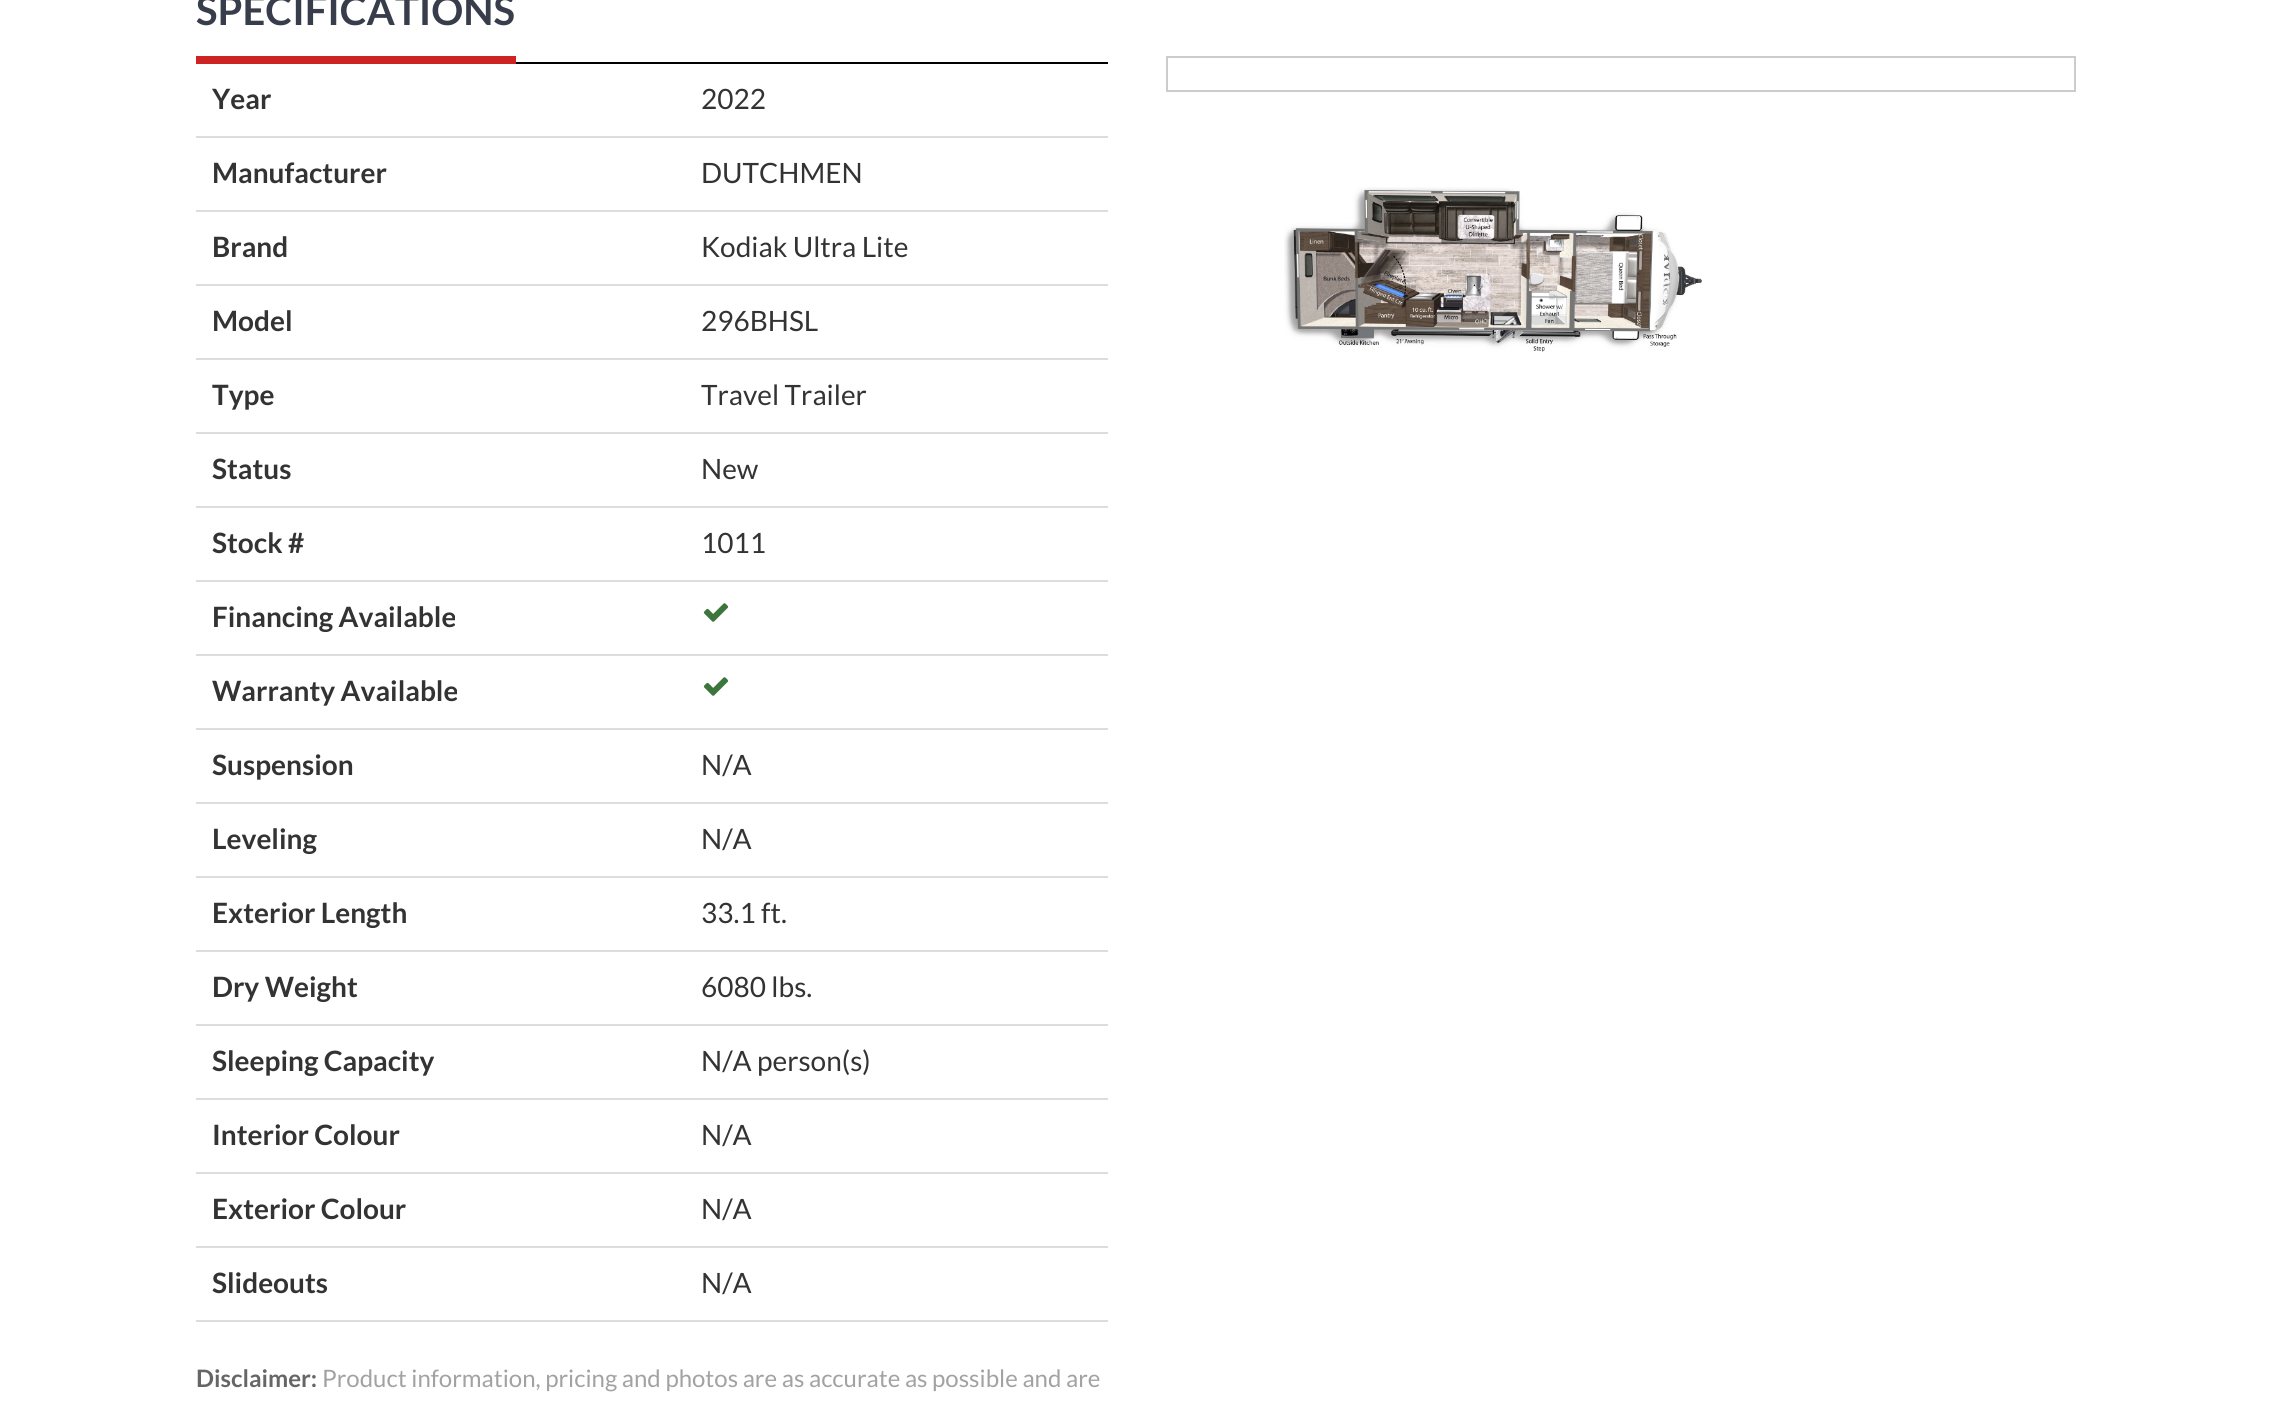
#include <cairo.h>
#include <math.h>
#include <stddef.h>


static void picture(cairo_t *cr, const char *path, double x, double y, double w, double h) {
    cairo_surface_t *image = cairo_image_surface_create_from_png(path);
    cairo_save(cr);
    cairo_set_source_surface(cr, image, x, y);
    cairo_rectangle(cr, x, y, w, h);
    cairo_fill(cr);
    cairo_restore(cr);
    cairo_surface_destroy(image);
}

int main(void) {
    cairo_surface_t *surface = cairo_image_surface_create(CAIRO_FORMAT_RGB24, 2271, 1403);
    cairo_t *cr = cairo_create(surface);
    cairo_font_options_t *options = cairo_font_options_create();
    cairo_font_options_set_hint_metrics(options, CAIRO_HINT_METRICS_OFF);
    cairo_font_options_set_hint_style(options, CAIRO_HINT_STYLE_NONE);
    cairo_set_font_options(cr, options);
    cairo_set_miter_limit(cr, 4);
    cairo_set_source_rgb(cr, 1, 1, 1);
    cairo_paint(cr);
    cairo_set_source_rgb(cr, 0.804, 0.137, 0.137);
    cairo_rectangle(cr, 196, 56, 320, 8);
    cairo_fill(cr);
    cairo_select_font_face(cr, "Lato", CAIRO_FONT_SLANT_NORMAL, CAIRO_FONT_WEIGHT_BOLD);
    cairo_set_font_size(cr, 40);
    cairo_set_source_rgb(cr, 0.22, 0.239, 0.294);
    cairo_move_to(cr, 196, 25);
    cairo_show_text(cr, "SPECIFICATIONS");
    cairo_set_font_size(cr, 28);
    cairo_set_source_rgb(cr, 0.2, 0.2, 0.2);
    cairo_move_to(cr, 212, 109);
    cairo_show_text(cr, "Year");
    cairo_set_source_rgb(cr, 0, 0, 0);
    cairo_rectangle(cr, 516, 62, 592, 2);
    cairo_fill(cr);
    cairo_select_font_face(cr, "Lato", CAIRO_FONT_SLANT_NORMAL, CAIRO_FONT_WEIGHT_NORMAL);
    cairo_set_source_rgb(cr, 0.2, 0.2, 0.2);
    cairo_move_to(cr, 701, 109);
    cairo_show_text(cr, "2022");
    cairo_select_font_face(cr, "Lato", CAIRO_FONT_SLANT_NORMAL, CAIRO_FONT_WEIGHT_BOLD);
    cairo_move_to(cr, 212, 183);
    cairo_show_text(cr, "Manufacturer");
    cairo_set_source_rgb(cr, 0.867, 0.867, 0.867);
    cairo_rectangle(cr, 196, 136, 912, 2);
    cairo_fill(cr);
    cairo_select_font_face(cr, "Lato", CAIRO_FONT_SLANT_NORMAL, CAIRO_FONT_WEIGHT_NORMAL);
    cairo_set_source_rgb(cr, 0.2, 0.2, 0.2);
    cairo_move_to(cr, 701, 183);
    cairo_show_text(cr, "DUTCHMEN");
    cairo_select_font_face(cr, "Lato", CAIRO_FONT_SLANT_NORMAL, CAIRO_FONT_WEIGHT_BOLD);
    cairo_move_to(cr, 212, 257);
    cairo_show_text(cr, "Brand");
    cairo_set_source_rgb(cr, 0.867, 0.867, 0.867);
    cairo_rectangle(cr, 196, 210, 912, 2);
    cairo_fill(cr);
    cairo_select_font_face(cr, "Lato", CAIRO_FONT_SLANT_NORMAL, CAIRO_FONT_WEIGHT_NORMAL);
    cairo_set_source_rgb(cr, 0.2, 0.2, 0.2);
    cairo_move_to(cr, 701, 257);
    cairo_show_text(cr, "Kodiak Ultra Lite");
    cairo_select_font_face(cr, "Lato", CAIRO_FONT_SLANT_NORMAL, CAIRO_FONT_WEIGHT_BOLD);
    cairo_move_to(cr, 212, 331);
    cairo_show_text(cr, "Model");
    cairo_set_source_rgb(cr, 0.867, 0.867, 0.867);
    cairo_rectangle(cr, 196, 284, 912, 2);
    cairo_fill(cr);
    cairo_select_font_face(cr, "Lato", CAIRO_FONT_SLANT_NORMAL, CAIRO_FONT_WEIGHT_NORMAL);
    cairo_set_source_rgb(cr, 0.2, 0.2, 0.2);
    cairo_move_to(cr, 701, 331);
    cairo_show_text(cr, "296BHSL");
    cairo_select_font_face(cr, "Lato", CAIRO_FONT_SLANT_NORMAL, CAIRO_FONT_WEIGHT_BOLD);
    cairo_move_to(cr, 212, 405);
    cairo_show_text(cr, "Type");
    cairo_set_source_rgb(cr, 0.867, 0.867, 0.867);
    cairo_rectangle(cr, 196, 358, 912, 2);
    cairo_fill(cr);
    cairo_select_font_face(cr, "Lato", CAIRO_FONT_SLANT_NORMAL, CAIRO_FONT_WEIGHT_NORMAL);
    cairo_set_source_rgb(cr, 0.2, 0.2, 0.2);
    cairo_move_to(cr, 701, 405);
    cairo_show_text(cr, "Travel Trailer");
    cairo_select_font_face(cr, "Lato", CAIRO_FONT_SLANT_NORMAL, CAIRO_FONT_WEIGHT_BOLD);
    cairo_move_to(cr, 212, 479);
    cairo_show_text(cr, "Status");
    cairo_set_source_rgb(cr, 0.867, 0.867, 0.867);
    cairo_rectangle(cr, 196, 432, 912, 2);
    cairo_fill(cr);
    cairo_select_font_face(cr, "Lato", CAIRO_FONT_SLANT_NORMAL, CAIRO_FONT_WEIGHT_NORMAL);
    cairo_set_source_rgb(cr, 0.2, 0.2, 0.2);
    cairo_move_to(cr, 701, 479);
    cairo_show_text(cr, "New");
    cairo_select_font_face(cr, "Lato", CAIRO_FONT_SLANT_NORMAL, CAIRO_FONT_WEIGHT_BOLD);
    cairo_move_to(cr, 212, 553);
    cairo_show_text(cr, "Stock #");
    cairo_set_source_rgb(cr, 0.867, 0.867, 0.867);
    cairo_rectangle(cr, 196, 506, 912, 2);
    cairo_fill(cr);
    cairo_select_font_face(cr, "Lato", CAIRO_FONT_SLANT_NORMAL, CAIRO_FONT_WEIGHT_NORMAL);
    cairo_set_source_rgb(cr, 0.2, 0.2, 0.2);
    cairo_move_to(cr, 701, 553);
    cairo_show_text(cr, "1011");
    cairo_set_source_rgb(cr, 0.867, 0.867, 0.867);
    cairo_rectangle(cr, 196, 580, 912, 2);
    cairo_fill(cr);
    picture(cr, "img1.png", 703, 603, 26, 19);
    cairo_select_font_face(cr, "Lato", CAIRO_FONT_SLANT_NORMAL, CAIRO_FONT_WEIGHT_BOLD);
    cairo_set_source_rgb(cr, 0.2, 0.2, 0.2);
    cairo_move_to(cr, 212, 627);
    cairo_show_text(cr, "Financing Available");
    cairo_set_source_rgb(cr, 0.867, 0.867, 0.867);
    cairo_rectangle(cr, 196, 654, 912, 2);
    cairo_fill(cr);
    picture(cr, "img1.png", 703, 677, 26, 19);
    cairo_set_source_rgb(cr, 0.2, 0.2, 0.2);
    cairo_move_to(cr, 212, 701);
    cairo_show_text(cr, "Warranty Available");
    cairo_move_to(cr, 212, 775);
    cairo_show_text(cr, "Suspension");
    cairo_set_source_rgb(cr, 0.867, 0.867, 0.867);
    cairo_rectangle(cr, 196, 728, 912, 2);
    cairo_fill(cr);
    cairo_select_font_face(cr, "Lato", CAIRO_FONT_SLANT_NORMAL, CAIRO_FONT_WEIGHT_NORMAL);
    cairo_set_source_rgb(cr, 0.2, 0.2, 0.2);
    cairo_move_to(cr, 701, 775);
    cairo_show_text(cr, "N/A");
    cairo_select_font_face(cr, "Lato", CAIRO_FONT_SLANT_NORMAL, CAIRO_FONT_WEIGHT_BOLD);
    cairo_move_to(cr, 212, 849);
    cairo_show_text(cr, "Leveling");
    cairo_set_source_rgb(cr, 0.867, 0.867, 0.867);
    cairo_rectangle(cr, 196, 802, 912, 2);
    cairo_fill(cr);
    cairo_select_font_face(cr, "Lato", CAIRO_FONT_SLANT_NORMAL, CAIRO_FONT_WEIGHT_NORMAL);
    cairo_set_source_rgb(cr, 0.2, 0.2, 0.2);
    cairo_move_to(cr, 701, 849);
    cairo_show_text(cr, "N/A");
    cairo_select_font_face(cr, "Lato", CAIRO_FONT_SLANT_NORMAL, CAIRO_FONT_WEIGHT_BOLD);
    cairo_move_to(cr, 212, 923);
    cairo_show_text(cr, "Exterior Length");
    cairo_set_source_rgb(cr, 0.867, 0.867, 0.867);
    cairo_rectangle(cr, 196, 876, 912, 2);
    cairo_fill(cr);
    cairo_select_font_face(cr, "Lato", CAIRO_FONT_SLANT_NORMAL, CAIRO_FONT_WEIGHT_NORMAL);
    cairo_set_source_rgb(cr, 0.2, 0.2, 0.2);
    cairo_move_to(cr, 701, 923);
    cairo_show_text(cr, "33.1 ft.");
    cairo_select_font_face(cr, "Lato", CAIRO_FONT_SLANT_NORMAL, CAIRO_FONT_WEIGHT_BOLD);
    cairo_move_to(cr, 212, 997);
    cairo_show_text(cr, "Dry Weight");
    cairo_set_source_rgb(cr, 0.867, 0.867, 0.867);
    cairo_rectangle(cr, 196, 950, 912, 2);
    cairo_fill(cr);
    cairo_select_font_face(cr, "Lato", CAIRO_FONT_SLANT_NORMAL, CAIRO_FONT_WEIGHT_NORMAL);
    cairo_set_source_rgb(cr, 0.2, 0.2, 0.2);
    cairo_move_to(cr, 701, 997);
    cairo_show_text(cr, "6080 lbs.");
    cairo_select_font_face(cr, "Lato", CAIRO_FONT_SLANT_NORMAL, CAIRO_FONT_WEIGHT_BOLD);
    cairo_move_to(cr, 212, 1071);
    cairo_show_text(cr, "Sleeping Capacity");
    cairo_set_source_rgb(cr, 0.867, 0.867, 0.867);
    cairo_rectangle(cr, 196, 1024, 912, 2);
    cairo_fill(cr);
    cairo_select_font_face(cr, "Lato", CAIRO_FONT_SLANT_NORMAL, CAIRO_FONT_WEIGHT_NORMAL);
    cairo_set_source_rgb(cr, 0.2, 0.2, 0.2);
    cairo_move_to(cr, 701, 1071);
    cairo_show_text(cr, "N/A person(s)");
    cairo_select_font_face(cr, "Lato", CAIRO_FONT_SLANT_NORMAL, CAIRO_FONT_WEIGHT_BOLD);
    cairo_move_to(cr, 212, 1145);
    cairo_show_text(cr, "Interior Colour");
    cairo_set_source_rgb(cr, 0.867, 0.867, 0.867);
    cairo_rectangle(cr, 196, 1098, 912, 2);
    cairo_fill(cr);
    cairo_select_font_face(cr, "Lato", CAIRO_FONT_SLANT_NORMAL, CAIRO_FONT_WEIGHT_NORMAL);
    cairo_set_source_rgb(cr, 0.2, 0.2, 0.2);
    cairo_move_to(cr, 701, 1145);
    cairo_show_text(cr, "N/A");
    cairo_select_font_face(cr, "Lato", CAIRO_FONT_SLANT_NORMAL, CAIRO_FONT_WEIGHT_BOLD);
    cairo_move_to(cr, 212, 1219);
    cairo_show_text(cr, "Exterior Colour");
    cairo_set_source_rgb(cr, 0.867, 0.867, 0.867);
    cairo_rectangle(cr, 196, 1172, 912, 2);
    cairo_fill(cr);
    cairo_select_font_face(cr, "Lato", CAIRO_FONT_SLANT_NORMAL, CAIRO_FONT_WEIGHT_NORMAL);
    cairo_set_source_rgb(cr, 0.2, 0.2, 0.2);
    cairo_move_to(cr, 701, 1219);
    cairo_show_text(cr, "N/A");
    cairo_select_font_face(cr, "Lato", CAIRO_FONT_SLANT_NORMAL, CAIRO_FONT_WEIGHT_BOLD);
    cairo_move_to(cr, 212, 1293);
    cairo_show_text(cr, "Slideouts");
    cairo_set_source_rgb(cr, 0.867, 0.867, 0.867);
    cairo_rectangle(cr, 196, 1246, 912, 2);
    cairo_fill(cr);
    cairo_rectangle(cr, 196, 1320, 912, 2);
    cairo_fill(cr);
    cairo_select_font_face(cr, "Lato", CAIRO_FONT_SLANT_NORMAL, CAIRO_FONT_WEIGHT_NORMAL);
    cairo_set_source_rgb(cr, 0.2, 0.2, 0.2);
    cairo_move_to(cr, 701, 1293);
    cairo_show_text(cr, "N/A");
    cairo_select_font_face(cr, "Lato", CAIRO_FONT_SLANT_NORMAL, CAIRO_FONT_WEIGHT_BOLD);
    cairo_set_font_size(cr, 24);
    cairo_set_source_rgb(cr, 0.4, 0.4, 0.4);
    cairo_move_to(cr, 196, 1387);
    cairo_show_text(cr, "Disclaimer:");
    cairo_select_font_face(cr, "Lato", CAIRO_FONT_SLANT_NORMAL, CAIRO_FONT_WEIGHT_NORMAL);
    cairo_set_source_rgb(cr, 0.639, 0.635, 0.635);
    cairo_move_to(cr, 322, 1387);
    cairo_show_text(cr, "Product information, pricing and photos are as accurate as possible and are");
    cairo_rectangle(cr, 1167, 57, 908, 34);
    cairo_set_source_rgb(cr, 0.8, 0.8, 0.8);
    cairo_stroke(cr);
    picture(cr, "img2.png", 1284, 187, 418, 165);
    cairo_surface_write_to_png(surface, "page.png");
    cairo_font_options_destroy(options);
    cairo_destroy(cr);
    cairo_surface_destroy(surface);
    return 0;
}
